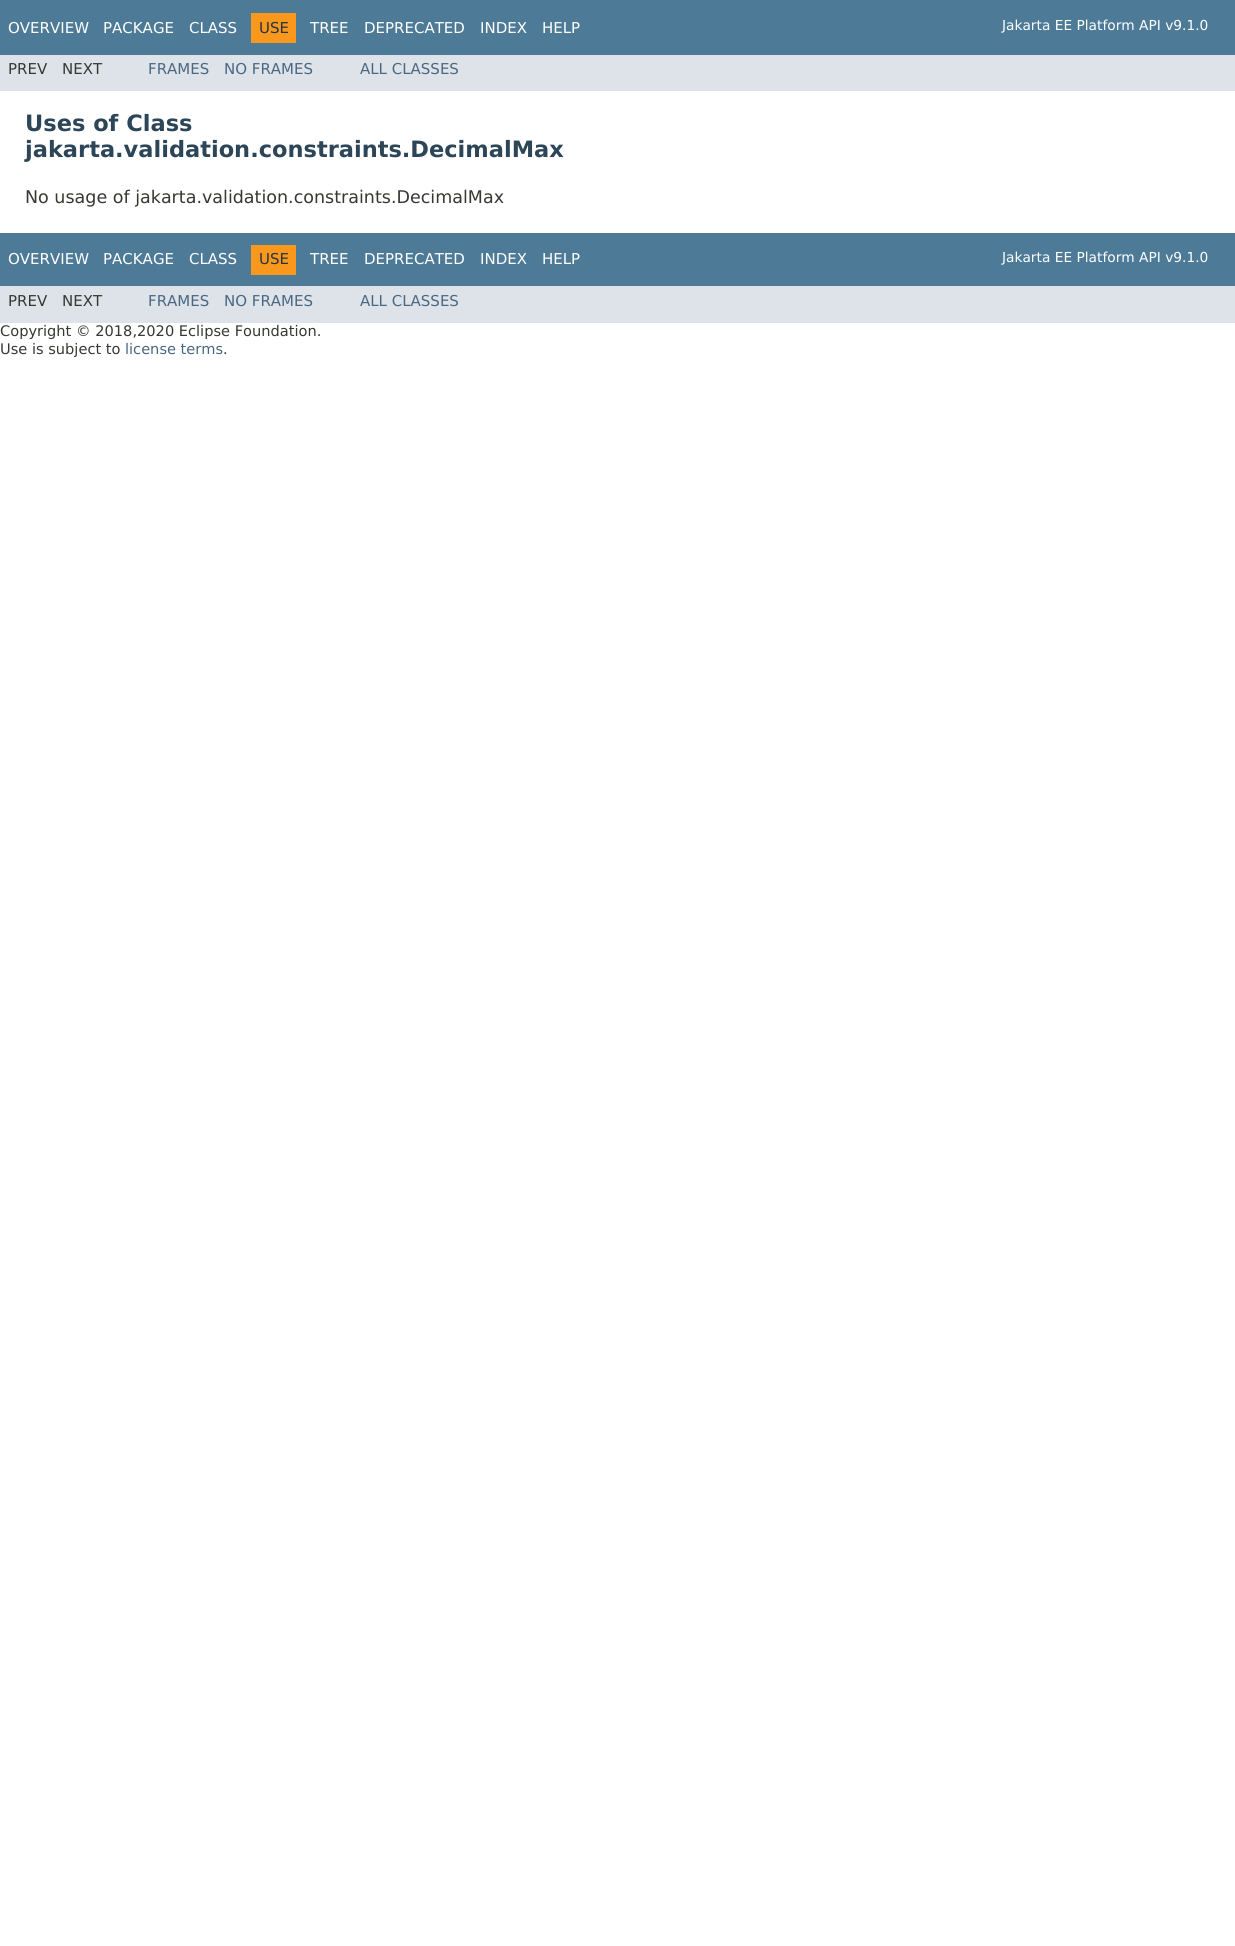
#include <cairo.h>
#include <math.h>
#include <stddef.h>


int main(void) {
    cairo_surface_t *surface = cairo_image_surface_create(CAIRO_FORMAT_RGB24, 1235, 1946);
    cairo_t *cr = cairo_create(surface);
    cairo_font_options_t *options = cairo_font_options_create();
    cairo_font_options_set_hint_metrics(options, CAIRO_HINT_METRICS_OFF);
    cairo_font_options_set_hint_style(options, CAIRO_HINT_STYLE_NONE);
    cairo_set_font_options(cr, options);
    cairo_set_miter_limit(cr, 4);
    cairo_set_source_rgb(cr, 1, 1, 1);
    cairo_paint(cr);
    cairo_set_source_rgb(cr, 0.302, 0.478, 0.592);
    cairo_rectangle(cr, 0, 0, 1235, 55);
    cairo_fill(cr);
    cairo_select_font_face(cr, "DejaVu Sans", CAIRO_FONT_SLANT_NORMAL, CAIRO_FONT_WEIGHT_NORMAL);
    cairo_set_font_size(cr, 15);
    cairo_set_source_rgb(cr, 1, 1, 1);
    cairo_move_to(cr, 8, 33);
    cairo_show_text(cr, "OVERVIEW");
    cairo_move_to(cr, 103, 33);
    cairo_show_text(cr, "PACKAGE");
    cairo_move_to(cr, 189, 33);
    cairo_show_text(cr, "CLASS");
    cairo_set_source_rgb(cr, 0.973, 0.596, 0.114);
    cairo_rectangle(cr, 251, 13, 45, 30);
    cairo_fill(cr);
    cairo_set_source_rgb(cr, 0.145, 0.204, 0.255);
    cairo_move_to(cr, 259, 33);
    cairo_show_text(cr, "USE");
    cairo_set_source_rgb(cr, 1, 1, 1);
    cairo_move_to(cr, 310, 33);
    cairo_show_text(cr, "TREE");
    cairo_move_to(cr, 364, 33);
    cairo_show_text(cr, "DEPRECATED");
    cairo_move_to(cr, 480, 33);
    cairo_show_text(cr, "INDEX");
    cairo_move_to(cr, 542, 33);
    cairo_show_text(cr, "HELP");
    cairo_set_font_size(cr, 13.75);
    cairo_move_to(cr, 1002, 30);
    cairo_show_text(cr, "Jakarta EE Platform API v9.1.0");
    cairo_set_source_rgb(cr, 0.871, 0.89, 0.914);
    cairo_rectangle(cr, 0, 55, 1235, 36);
    cairo_fill(cr);
    cairo_set_font_size(cr, 15);
    cairo_set_source_rgb(cr, 0.208, 0.22, 0.2);
    cairo_move_to(cr, 8, 74);
    cairo_show_text(cr, "PREV");
    cairo_move_to(cr, 62, 74);
    cairo_show_text(cr, "NEXT");
    cairo_set_source_rgb(cr, 0.29, 0.404, 0.51);
    cairo_move_to(cr, 148, 74);
    cairo_show_text(cr, "FRAMES");
    cairo_move_to(cr, 224, 74);
    cairo_show_text(cr, "NO FRAMES");
    cairo_move_to(cr, 360, 74);
    cairo_show_text(cr, "ALL CLASSES");
    cairo_select_font_face(cr, "DejaVu Sans", CAIRO_FONT_SLANT_NORMAL, CAIRO_FONT_WEIGHT_BOLD);
    cairo_set_font_size(cr, 22.5);
    cairo_set_source_rgb(cr, 0.173, 0.271, 0.341);
    cairo_move_to(cr, 25, 131);
    cairo_show_text(cr, "Uses of Class");
    cairo_move_to(cr, 25, 157);
    cairo_show_text(cr, "jakarta.validation.constraints.DecimalMax");
    cairo_select_font_face(cr, "DejaVu Sans", CAIRO_FONT_SLANT_NORMAL, CAIRO_FONT_WEIGHT_NORMAL);
    cairo_set_font_size(cr, 17.5);
    cairo_set_source_rgb(cr, 0.208, 0.22, 0.2);
    cairo_move_to(cr, 25, 203);
    cairo_show_text(cr, "No usage of jakarta.validation.constraints.DecimalMax");
    cairo_set_source_rgb(cr, 0.302, 0.478, 0.592);
    cairo_rectangle(cr, 0, 233, 1235, 53);
    cairo_fill(cr);
    cairo_set_font_size(cr, 15);
    cairo_set_source_rgb(cr, 1, 1, 1);
    cairo_move_to(cr, 8, 264);
    cairo_show_text(cr, "OVERVIEW");
    cairo_move_to(cr, 103, 264);
    cairo_show_text(cr, "PACKAGE");
    cairo_move_to(cr, 189, 264);
    cairo_show_text(cr, "CLASS");
    cairo_set_source_rgb(cr, 0.973, 0.596, 0.114);
    cairo_rectangle(cr, 251, 245, 45, 30);
    cairo_fill(cr);
    cairo_set_source_rgb(cr, 0.145, 0.204, 0.255);
    cairo_move_to(cr, 259, 264);
    cairo_show_text(cr, "USE");
    cairo_set_source_rgb(cr, 1, 1, 1);
    cairo_move_to(cr, 310, 264);
    cairo_show_text(cr, "TREE");
    cairo_move_to(cr, 364, 264);
    cairo_show_text(cr, "DEPRECATED");
    cairo_move_to(cr, 480, 264);
    cairo_show_text(cr, "INDEX");
    cairo_move_to(cr, 542, 264);
    cairo_show_text(cr, "HELP");
    cairo_set_font_size(cr, 13.75);
    cairo_move_to(cr, 1002, 262);
    cairo_show_text(cr, "Jakarta EE Platform API v9.1.0");
    cairo_set_source_rgb(cr, 0.871, 0.89, 0.914);
    cairo_rectangle(cr, 0, 286, 1235, 37);
    cairo_fill(cr);
    cairo_set_font_size(cr, 15);
    cairo_set_source_rgb(cr, 0.208, 0.22, 0.2);
    cairo_move_to(cr, 8, 306);
    cairo_show_text(cr, "PREV");
    cairo_move_to(cr, 62, 306);
    cairo_show_text(cr, "NEXT");
    cairo_set_source_rgb(cr, 0.29, 0.404, 0.51);
    cairo_move_to(cr, 148, 306);
    cairo_show_text(cr, "FRAMES");
    cairo_move_to(cr, 224, 306);
    cairo_show_text(cr, "NO FRAMES");
    cairo_move_to(cr, 360, 306);
    cairo_show_text(cr, "ALL CLASSES");
    cairo_set_font_size(cr, 14.6);
    cairo_set_source_rgb(cr, 0.208, 0.22, 0.2);
    cairo_move_to(cr, 0, 336);
    cairo_show_text(cr, "Copyright © 2018,2020 Eclipse Foundation.");
    cairo_move_to(cr, 0, 354);
    cairo_show_text(cr, "Use is subject to");
    cairo_set_source_rgb(cr, 0.29, 0.404, 0.51);
    cairo_move_to(cr, 125, 354);
    cairo_show_text(cr, "license terms");
    cairo_set_source_rgb(cr, 0.208, 0.22, 0.2);
    cairo_move_to(cr, 223, 354);
    cairo_show_text(cr, ".");
    cairo_surface_write_to_png(surface, "page.png");
    cairo_font_options_destroy(options);
    cairo_destroy(cr);
    cairo_surface_destroy(surface);
    return 0;
}
